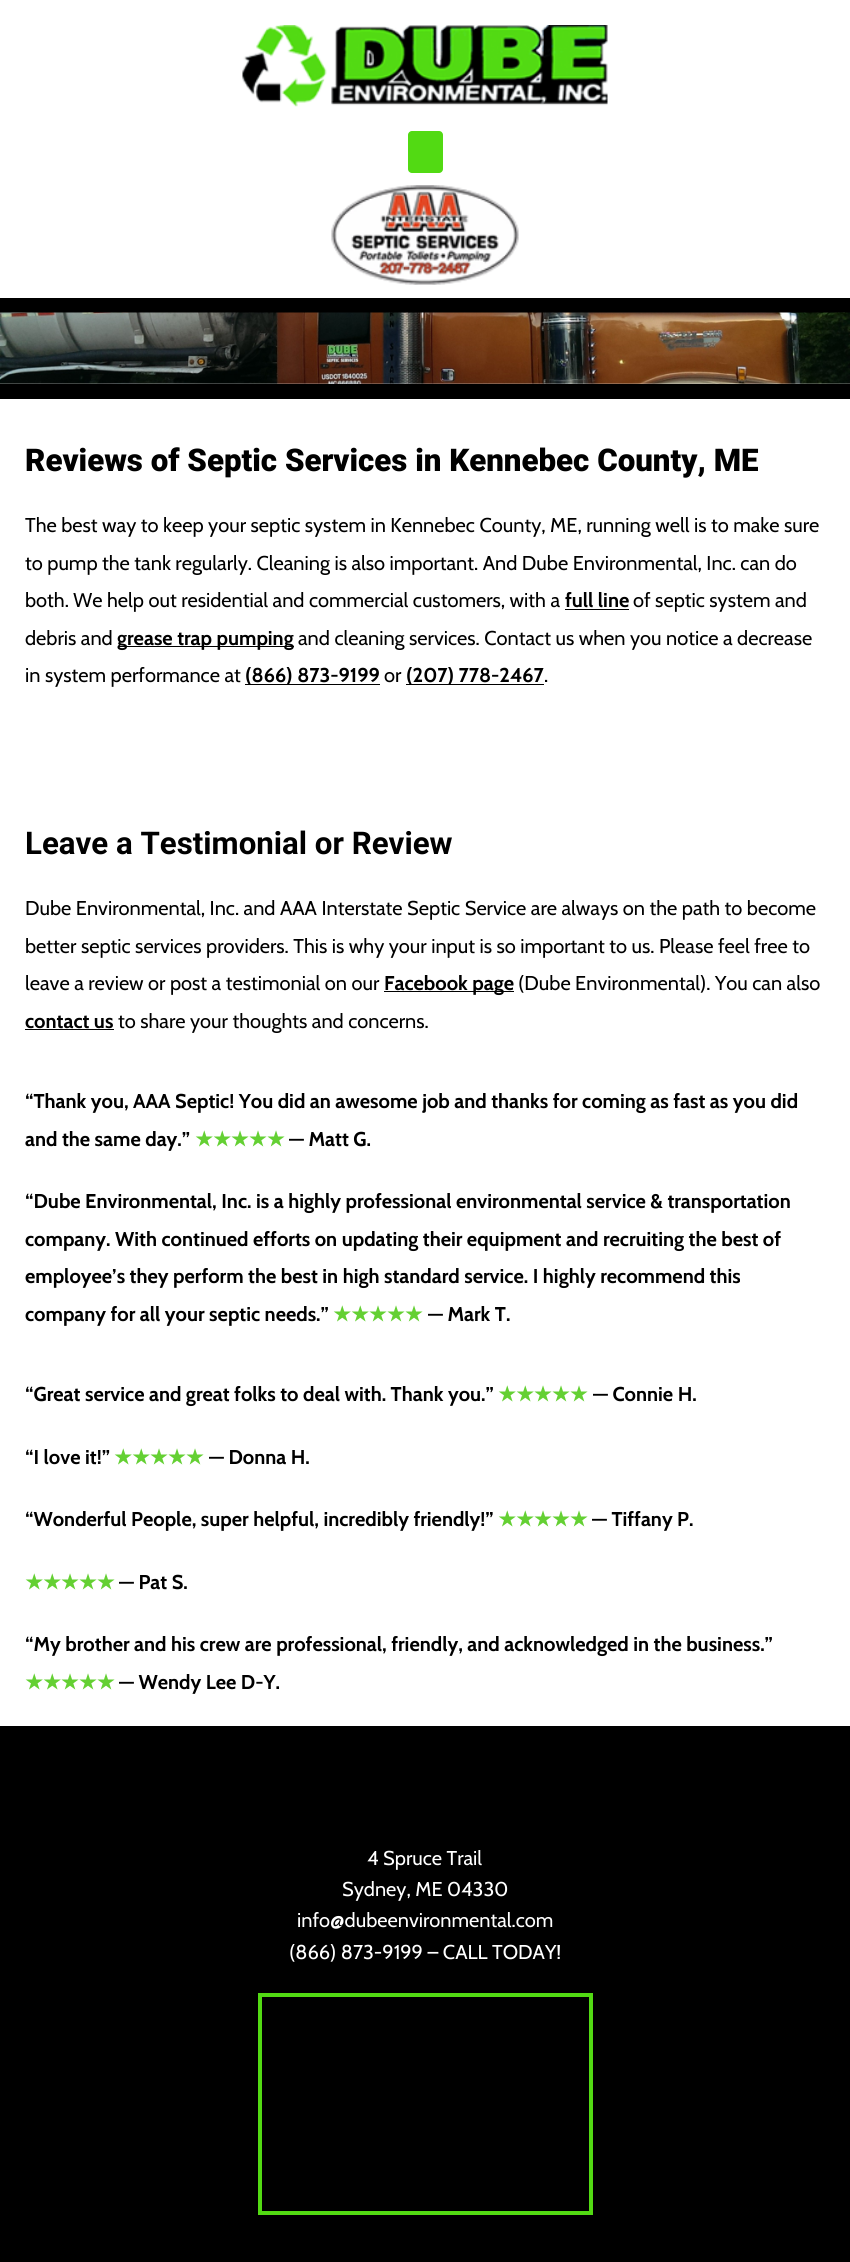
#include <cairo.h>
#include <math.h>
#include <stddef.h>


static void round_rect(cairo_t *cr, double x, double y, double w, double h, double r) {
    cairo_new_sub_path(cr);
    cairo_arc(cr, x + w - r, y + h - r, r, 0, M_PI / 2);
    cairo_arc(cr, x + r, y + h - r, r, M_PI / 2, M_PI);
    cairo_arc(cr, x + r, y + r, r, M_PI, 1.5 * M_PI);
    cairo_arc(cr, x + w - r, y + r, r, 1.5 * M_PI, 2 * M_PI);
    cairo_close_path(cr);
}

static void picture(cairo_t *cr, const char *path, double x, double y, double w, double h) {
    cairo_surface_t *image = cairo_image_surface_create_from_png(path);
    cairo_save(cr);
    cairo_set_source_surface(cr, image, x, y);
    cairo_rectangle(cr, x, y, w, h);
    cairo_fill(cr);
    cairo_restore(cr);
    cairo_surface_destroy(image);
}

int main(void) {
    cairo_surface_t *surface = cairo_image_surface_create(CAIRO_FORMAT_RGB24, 850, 2262);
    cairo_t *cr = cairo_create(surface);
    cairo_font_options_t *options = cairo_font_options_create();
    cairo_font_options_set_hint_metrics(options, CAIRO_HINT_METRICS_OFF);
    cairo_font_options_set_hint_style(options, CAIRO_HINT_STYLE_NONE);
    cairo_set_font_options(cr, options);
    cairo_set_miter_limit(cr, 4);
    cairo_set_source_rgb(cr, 1, 1, 1);
    cairo_paint(cr);
    picture(cr, "img1.png", 242, 25, 366, 82);
    cairo_set_source_rgb(cr, 0.322, 0.855, 0.075);
    round_rect(cr, 408, 131, 35, 42, 4);
    cairo_fill(cr);
    picture(cr, "img2.png", 331, 185, 188, 100);
    cairo_set_source_rgb(cr, 0, 0, 0);
    cairo_rectangle(cr, 0, 298, 850, 15);
    cairo_fill(cr);
    picture(cr, "img3.png", 0, 312, 850, 72);
    cairo_rectangle(cr, 0, 384, 850, 15);
    cairo_fill(cr);
    cairo_select_font_face(cr, "Roboto Black", CAIRO_FONT_SLANT_NORMAL, CAIRO_FONT_WEIGHT_NORMAL);
    cairo_set_font_size(cr, 31.25);
    cairo_move_to(cr, 25, 471);
    cairo_show_text(cr, "Reviews of Septic Services in Kennebec County, ME");
    cairo_select_font_face(cr, "Cabin", CAIRO_FONT_SLANT_NORMAL, CAIRO_FONT_WEIGHT_NORMAL);
    cairo_set_font_size(cr, 20);
    cairo_move_to(cr, 25, 532);
    cairo_show_text(cr, "The best way to keep your septic system in Kennebec County, ME, running well is to make sure");
    cairo_move_to(cr, 25, 570);
    cairo_show_text(cr, "to pump the tank regularly. Cleaning is also important. And Dube Environmental, Inc. can do");
    cairo_move_to(cr, 25, 607);
    cairo_show_text(cr, "both. We help out residential and commercial customers, with a");
    cairo_select_font_face(cr, "Cabin", CAIRO_FONT_SLANT_NORMAL, CAIRO_FONT_WEIGHT_BOLD);
    cairo_move_to(cr, 565, 607);
    cairo_show_text(cr, "full line");
    cairo_rectangle(cr, 565, 609, 64, 1);
    cairo_fill(cr);
    cairo_select_font_face(cr, "Cabin", CAIRO_FONT_SLANT_NORMAL, CAIRO_FONT_WEIGHT_NORMAL);
    cairo_move_to(cr, 633, 607);
    cairo_show_text(cr, "of septic system and");
    cairo_move_to(cr, 25, 645);
    cairo_show_text(cr, "debris and");
    cairo_rectangle(cr, 118, 646, 176, 1);
    cairo_fill(cr);
    cairo_select_font_face(cr, "Cabin", CAIRO_FONT_SLANT_NORMAL, CAIRO_FONT_WEIGHT_BOLD);
    cairo_move_to(cr, 117, 645);
    cairo_show_text(cr, "grease trap pumping");
    cairo_select_font_face(cr, "Cabin", CAIRO_FONT_SLANT_NORMAL, CAIRO_FONT_WEIGHT_NORMAL);
    cairo_move_to(cr, 298, 645);
    cairo_show_text(cr, "and cleaning services. Contact us when you notice a decrease");
    cairo_move_to(cr, 25, 682);
    cairo_show_text(cr, "in system performance at");
    cairo_rectangle(cr, 245, 684, 135, 1);
    cairo_fill(cr);
    cairo_select_font_face(cr, "Cabin", CAIRO_FONT_SLANT_NORMAL, CAIRO_FONT_WEIGHT_BOLD);
    cairo_move_to(cr, 245, 682);
    cairo_show_text(cr, "(866) 873-9199");
    cairo_select_font_face(cr, "Cabin", CAIRO_FONT_SLANT_NORMAL, CAIRO_FONT_WEIGHT_NORMAL);
    cairo_move_to(cr, 384, 682);
    cairo_show_text(cr, "or");
    cairo_rectangle(cr, 406, 684, 138, 1);
    cairo_fill(cr);
    cairo_select_font_face(cr, "Cabin", CAIRO_FONT_SLANT_NORMAL, CAIRO_FONT_WEIGHT_BOLD);
    cairo_move_to(cr, 406, 682);
    cairo_show_text(cr, "(207) 778-2467");
    cairo_select_font_face(cr, "Cabin", CAIRO_FONT_SLANT_NORMAL, CAIRO_FONT_WEIGHT_NORMAL);
    cairo_move_to(cr, 544, 682);
    cairo_show_text(cr, ".");
    cairo_select_font_face(cr, "Roboto", CAIRO_FONT_SLANT_NORMAL, CAIRO_FONT_WEIGHT_BOLD);
    cairo_set_font_size(cr, 31.25);
    cairo_move_to(cr, 25, 854);
    cairo_show_text(cr, "Leave a Testimonial or Review");
    cairo_select_font_face(cr, "Cabin", CAIRO_FONT_SLANT_NORMAL, CAIRO_FONT_WEIGHT_NORMAL);
    cairo_set_font_size(cr, 20);
    cairo_move_to(cr, 25, 915);
    cairo_show_text(cr, "Dube Environmental, Inc. and AAA Interstate Septic Service are always on the path to become");
    cairo_move_to(cr, 25, 953);
    cairo_show_text(cr, "better septic services providers. This is why your input is so important to us. Please feel free to");
    cairo_move_to(cr, 25, 990);
    cairo_show_text(cr, "leave a review or post a testimonial on our");
    cairo_rectangle(cr, 384, 991, 130, 1);
    cairo_fill(cr);
    cairo_select_font_face(cr, "Cabin", CAIRO_FONT_SLANT_NORMAL, CAIRO_FONT_WEIGHT_BOLD);
    cairo_move_to(cr, 384, 990);
    cairo_show_text(cr, "Facebook page");
    cairo_select_font_face(cr, "Cabin", CAIRO_FONT_SLANT_NORMAL, CAIRO_FONT_WEIGHT_NORMAL);
    cairo_move_to(cr, 518, 990);
    cairo_show_text(cr, "(Dube Environmental). You can also");
    cairo_select_font_face(cr, "Cabin", CAIRO_FONT_SLANT_NORMAL, CAIRO_FONT_WEIGHT_BOLD);
    cairo_move_to(cr, 25, 1028);
    cairo_show_text(cr, "contact us");
    cairo_rectangle(cr, 25, 1029, 89, 1);
    cairo_fill(cr);
    cairo_select_font_face(cr, "Cabin", CAIRO_FONT_SLANT_NORMAL, CAIRO_FONT_WEIGHT_NORMAL);
    cairo_move_to(cr, 118, 1028);
    cairo_show_text(cr, "to share your thoughts and concerns.");
    cairo_select_font_face(cr, "Cabin", CAIRO_FONT_SLANT_NORMAL, CAIRO_FONT_WEIGHT_BOLD);
    cairo_move_to(cr, 25, 1108);
    cairo_show_text(cr, "“Thank you, AAA Septic! You did an awesome job and thanks for coming as fast as you did");
    cairo_move_to(cr, 25, 1146);
    cairo_show_text(cr, "and the same day.”");
    cairo_select_font_face(cr, "DejaVu Sans", CAIRO_FONT_SLANT_NORMAL, CAIRO_FONT_WEIGHT_BOLD);
    cairo_set_source_rgb(cr, 0.392, 0.816, 0.2);
    cairo_move_to(cr, 195, 1146);
    cairo_show_text(cr, "★★★★★");
    cairo_select_font_face(cr, "Cabin", CAIRO_FONT_SLANT_NORMAL, CAIRO_FONT_WEIGHT_BOLD);
    cairo_set_source_rgb(cr, 0, 0, 0);
    cairo_move_to(cr, 289, 1146);
    cairo_show_text(cr, "— Matt G.");
    cairo_move_to(cr, 25, 1208);
    cairo_show_text(cr, "“Dube Environmental, Inc. is a highly professional environmental service & transportation");
    cairo_move_to(cr, 25, 1246);
    cairo_show_text(cr, "company. With continued efforts on updating their equipment and recruiting the best of");
    cairo_move_to(cr, 25, 1283);
    cairo_show_text(cr, "employee’s they perform the best in high standard service. I highly recommend this");
    cairo_move_to(cr, 25, 1321);
    cairo_show_text(cr, "company for all your septic needs.”");
    cairo_select_font_face(cr, "DejaVu Sans", CAIRO_FONT_SLANT_NORMAL, CAIRO_FONT_WEIGHT_BOLD);
    cairo_set_source_rgb(cr, 0.392, 0.816, 0.2);
    cairo_move_to(cr, 333, 1321);
    cairo_show_text(cr, "★★★★★");
    cairo_select_font_face(cr, "Cabin", CAIRO_FONT_SLANT_NORMAL, CAIRO_FONT_WEIGHT_BOLD);
    cairo_set_source_rgb(cr, 0, 0, 0);
    cairo_move_to(cr, 428, 1321);
    cairo_show_text(cr, "— Mark T.");
    cairo_move_to(cr, 25, 1401);
    cairo_show_text(cr, "“Great service and great folks to deal with. Thank you.”");
    cairo_select_font_face(cr, "DejaVu Sans", CAIRO_FONT_SLANT_NORMAL, CAIRO_FONT_WEIGHT_BOLD);
    cairo_set_source_rgb(cr, 0.392, 0.816, 0.2);
    cairo_move_to(cr, 498, 1401);
    cairo_show_text(cr, "★★★★★");
    cairo_select_font_face(cr, "Cabin", CAIRO_FONT_SLANT_NORMAL, CAIRO_FONT_WEIGHT_BOLD);
    cairo_set_source_rgb(cr, 0, 0, 0);
    cairo_move_to(cr, 593, 1401);
    cairo_show_text(cr, "— Connie H.");
    cairo_move_to(cr, 25, 1464);
    cairo_show_text(cr, "“I love it!”");
    cairo_select_font_face(cr, "DejaVu Sans", CAIRO_FONT_SLANT_NORMAL, CAIRO_FONT_WEIGHT_BOLD);
    cairo_set_source_rgb(cr, 0.392, 0.816, 0.2);
    cairo_move_to(cr, 114, 1464);
    cairo_show_text(cr, "★★★★★");
    cairo_select_font_face(cr, "Cabin", CAIRO_FONT_SLANT_NORMAL, CAIRO_FONT_WEIGHT_BOLD);
    cairo_set_source_rgb(cr, 0, 0, 0);
    cairo_move_to(cr, 209, 1464);
    cairo_show_text(cr, "— Donna H.");
    cairo_move_to(cr, 25, 1526);
    cairo_show_text(cr, "“Wonderful People, super helpful, incredibly friendly!”");
    cairo_select_font_face(cr, "DejaVu Sans", CAIRO_FONT_SLANT_NORMAL, CAIRO_FONT_WEIGHT_BOLD);
    cairo_set_source_rgb(cr, 0.392, 0.816, 0.2);
    cairo_move_to(cr, 498, 1526);
    cairo_show_text(cr, "★★★★★");
    cairo_select_font_face(cr, "Cabin", CAIRO_FONT_SLANT_NORMAL, CAIRO_FONT_WEIGHT_BOLD);
    cairo_set_source_rgb(cr, 0, 0, 0);
    cairo_move_to(cr, 592, 1526);
    cairo_show_text(cr, "— Tiffany P.");
    cairo_select_font_face(cr, "DejaVu Sans", CAIRO_FONT_SLANT_NORMAL, CAIRO_FONT_WEIGHT_BOLD);
    cairo_set_source_rgb(cr, 0.392, 0.816, 0.2);
    cairo_move_to(cr, 25, 1589);
    cairo_show_text(cr, "★★★★★");
    cairo_select_font_face(cr, "Cabin", CAIRO_FONT_SLANT_NORMAL, CAIRO_FONT_WEIGHT_BOLD);
    cairo_set_source_rgb(cr, 0, 0, 0);
    cairo_move_to(cr, 119, 1589);
    cairo_show_text(cr, "— Pat S.");
    cairo_move_to(cr, 25, 1651);
    cairo_show_text(cr, "“My brother and his crew are professional, friendly, and acknowledged in the business.”");
    cairo_select_font_face(cr, "DejaVu Sans", CAIRO_FONT_SLANT_NORMAL, CAIRO_FONT_WEIGHT_BOLD);
    cairo_set_source_rgb(cr, 0.392, 0.816, 0.2);
    cairo_move_to(cr, 25, 1689);
    cairo_show_text(cr, "★★★★★");
    cairo_select_font_face(cr, "Cabin", CAIRO_FONT_SLANT_NORMAL, CAIRO_FONT_WEIGHT_BOLD);
    cairo_set_source_rgb(cr, 0, 0, 0);
    cairo_move_to(cr, 119, 1689);
    cairo_show_text(cr, "— Wendy Lee D-Y.");
    cairo_rectangle(cr, 0, 1726, 850, 536);
    cairo_fill(cr);
    cairo_select_font_face(cr, "Cabin", CAIRO_FONT_SLANT_NORMAL, CAIRO_FONT_WEIGHT_NORMAL);
    cairo_set_source_rgb(cr, 1, 1, 1);
    cairo_move_to(cr, 367, 1865);
    cairo_show_text(cr, "4 Spruce Trail");
    cairo_move_to(cr, 342, 1896);
    cairo_show_text(cr, "Sydney, ME 04330");
    cairo_move_to(cr, 297, 1927);
    cairo_show_text(cr, "info@dubeenvironmental.com");
    cairo_move_to(cr, 289, 1959);
    cairo_show_text(cr, "(866) 873-9199 – CALL TODAY!");
    cairo_rectangle(cr, 260, 1995, 331, 218);
    cairo_set_source_rgb(cr, 0.322, 0.855, 0.075);
    cairo_set_line_width(cr, 4);
    cairo_stroke(cr);
    cairo_surface_write_to_png(surface, "page.png");
    cairo_font_options_destroy(options);
    cairo_destroy(cr);
    cairo_surface_destroy(surface);
    return 0;
}
